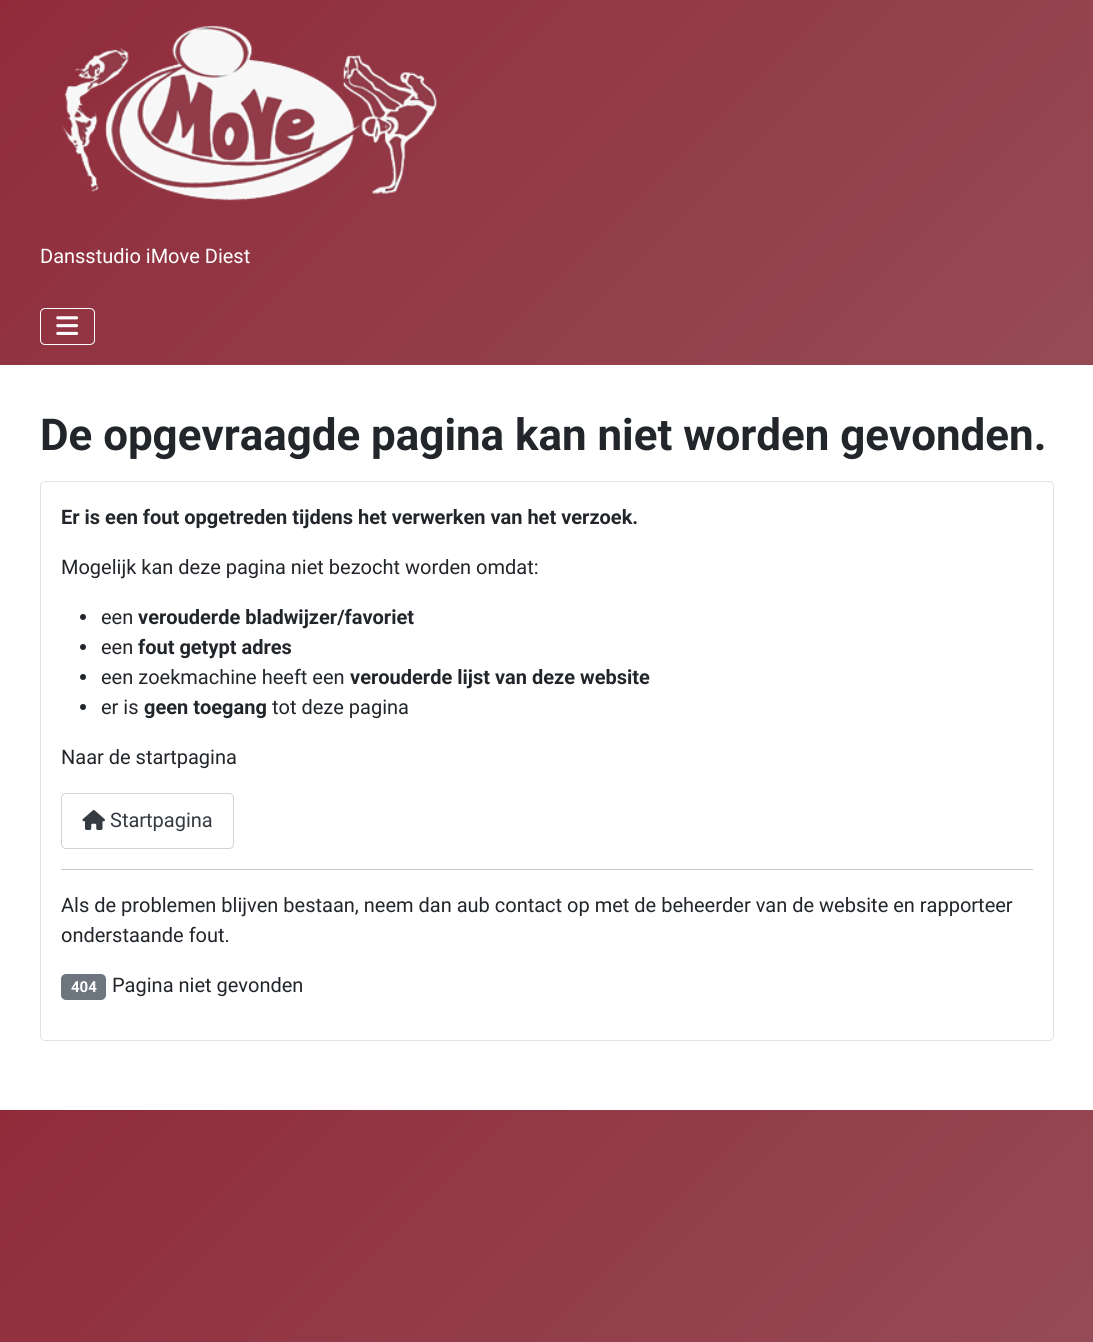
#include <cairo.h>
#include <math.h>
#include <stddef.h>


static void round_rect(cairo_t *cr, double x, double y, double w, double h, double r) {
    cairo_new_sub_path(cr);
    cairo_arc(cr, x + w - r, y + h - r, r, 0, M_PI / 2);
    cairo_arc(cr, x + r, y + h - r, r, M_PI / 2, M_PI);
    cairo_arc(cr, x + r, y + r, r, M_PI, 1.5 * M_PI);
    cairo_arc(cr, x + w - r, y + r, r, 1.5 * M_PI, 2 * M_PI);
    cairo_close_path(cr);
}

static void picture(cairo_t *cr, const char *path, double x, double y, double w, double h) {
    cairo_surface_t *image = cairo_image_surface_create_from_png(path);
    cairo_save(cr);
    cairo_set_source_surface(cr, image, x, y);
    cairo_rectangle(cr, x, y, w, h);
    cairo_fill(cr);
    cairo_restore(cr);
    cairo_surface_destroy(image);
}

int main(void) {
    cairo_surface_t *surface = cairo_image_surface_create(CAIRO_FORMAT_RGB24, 1093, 1342);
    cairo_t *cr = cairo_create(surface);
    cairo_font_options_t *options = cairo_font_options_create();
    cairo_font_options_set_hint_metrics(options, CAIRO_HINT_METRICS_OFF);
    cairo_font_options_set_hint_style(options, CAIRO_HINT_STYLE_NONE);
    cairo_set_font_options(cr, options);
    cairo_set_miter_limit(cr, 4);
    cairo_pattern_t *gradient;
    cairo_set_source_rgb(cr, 1, 1, 1);
    cairo_paint(cr);
    gradient = cairo_pattern_create_linear(182, -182, 912, 547);
    cairo_pattern_add_color_stop_rgba(gradient, 0, 0.569, 0.169, 0.231, 1);
    cairo_pattern_add_color_stop_rgba(gradient, 1, 0.584, 0.294, 0.337, 1);
    cairo_set_source(cr, gradient);
    cairo_pattern_destroy(gradient);
    cairo_rectangle(cr, 0, 0, 1093, 365);
    cairo_fill(cr);
    picture(cr, "img1.png", 62, 25, 375, 176);
    cairo_select_font_face(cr, "Roboto", CAIRO_FONT_SLANT_NORMAL, CAIRO_FONT_WEIGHT_NORMAL);
    cairo_set_font_size(cr, 20);
    cairo_set_source_rgb(cr, 1, 1, 1);
    cairo_move_to(cr, 40, 263);
    cairo_show_text(cr, "Dansstudio iMove Diest");
    round_rect(cr, 40.5, 308.5, 54, 36, 4.5);
    cairo_set_line_width(cr, 1);
    cairo_stroke(cr);
    picture(cr, "img2.png", 56, 316, 23, 19);
    cairo_select_font_face(cr, "Roboto", CAIRO_FONT_SLANT_NORMAL, CAIRO_FONT_WEIGHT_BOLD);
    cairo_set_font_size(cr, 43.9);
    cairo_set_source_rgb(cr, 0.133, 0.149, 0.165);
    cairo_move_to(cr, 40, 450);
    cairo_show_text(cr, "De opgevraagde pagina kan niet worden gevonden.");
    round_rect(cr, 40.5, 481.5, 1013, 559, 4.5);
    cairo_set_source_rgb(cr, 0.875, 0.89, 0.906);
    cairo_stroke(cr);
    cairo_set_font_size(cr, 20);
    cairo_set_source_rgb(cr, 0.133, 0.149, 0.165);
    cairo_move_to(cr, 61, 524);
    cairo_show_text(cr, "Er is een fout opgetreden tijdens het verwerken van het verzoek.");
    cairo_select_font_face(cr, "Roboto", CAIRO_FONT_SLANT_NORMAL, CAIRO_FONT_WEIGHT_NORMAL);
    cairo_move_to(cr, 61, 574);
    cairo_show_text(cr, "Mogelijk kan deze pagina niet bezocht worden omdat:");
    cairo_new_path(cr);
    cairo_arc(cr, 83, 617, 3, 0, 2 * M_PI);
    cairo_fill(cr);
    cairo_move_to(cr, 101, 624);
    cairo_show_text(cr, "een");
    cairo_select_font_face(cr, "Roboto", CAIRO_FONT_SLANT_NORMAL, CAIRO_FONT_WEIGHT_BOLD);
    cairo_move_to(cr, 138, 624);
    cairo_show_text(cr, "verouderde bladwijzer/favoriet");
    cairo_new_path(cr);
    cairo_arc(cr, 83, 647, 3, 0, 2 * M_PI);
    cairo_fill(cr);
    cairo_select_font_face(cr, "Roboto", CAIRO_FONT_SLANT_NORMAL, CAIRO_FONT_WEIGHT_NORMAL);
    cairo_move_to(cr, 101, 654);
    cairo_show_text(cr, "een");
    cairo_select_font_face(cr, "Roboto", CAIRO_FONT_SLANT_NORMAL, CAIRO_FONT_WEIGHT_BOLD);
    cairo_move_to(cr, 138, 654);
    cairo_show_text(cr, "fout getypt adres");
    cairo_new_path(cr);
    cairo_arc(cr, 83, 677, 3, 0, 2 * M_PI);
    cairo_fill(cr);
    cairo_select_font_face(cr, "Roboto", CAIRO_FONT_SLANT_NORMAL, CAIRO_FONT_WEIGHT_NORMAL);
    cairo_move_to(cr, 101, 684);
    cairo_show_text(cr, "een zoekmachine heeft een");
    cairo_select_font_face(cr, "Roboto", CAIRO_FONT_SLANT_NORMAL, CAIRO_FONT_WEIGHT_BOLD);
    cairo_move_to(cr, 350, 684);
    cairo_show_text(cr, "verouderde lijst van deze website");
    cairo_new_path(cr);
    cairo_arc(cr, 83, 707, 3, 0, 2 * M_PI);
    cairo_fill(cr);
    cairo_select_font_face(cr, "Roboto", CAIRO_FONT_SLANT_NORMAL, CAIRO_FONT_WEIGHT_NORMAL);
    cairo_move_to(cr, 101, 714);
    cairo_show_text(cr, "er is");
    cairo_select_font_face(cr, "Roboto", CAIRO_FONT_SLANT_NORMAL, CAIRO_FONT_WEIGHT_BOLD);
    cairo_move_to(cr, 144, 714);
    cairo_show_text(cr, "geen toegang");
    cairo_select_font_face(cr, "Roboto", CAIRO_FONT_SLANT_NORMAL, CAIRO_FONT_WEIGHT_NORMAL);
    cairo_move_to(cr, 272, 714);
    cairo_show_text(cr, "tot deze pagina");
    cairo_move_to(cr, 61, 764);
    cairo_show_text(cr, "Naar de startpagina");
    round_rect(cr, 61.5, 793.5, 172, 55, 4.5);
    cairo_set_source_rgb(cr, 0.808, 0.831, 0.855);
    cairo_stroke(cr);
    picture(cr, "img3.png", 82, 810, 23, 20);
    cairo_set_source_rgb(cr, 0.208, 0.231, 0.255);
    cairo_move_to(cr, 110, 827);
    cairo_show_text(cr, "Startpagina");
    cairo_set_source_rgb(cr, 0.784, 0.788, 0.792);
    cairo_rectangle(cr, 61, 869, 972, 1);
    cairo_fill(cr);
    cairo_set_source_rgb(cr, 0.133, 0.149, 0.165);
    cairo_move_to(cr, 61, 912);
    cairo_show_text(cr, "Als de problemen blijven bestaan, neem dan aub contact op met de beheerder van de website en rapporteer");
    cairo_move_to(cr, 61, 942);
    cairo_show_text(cr, "onderstaande fout.");
    cairo_set_source_rgb(cr, 0.427, 0.459, 0.494);
    round_rect(cr, 61, 974, 45, 26, 5);
    cairo_fill(cr);
    cairo_select_font_face(cr, "Roboto", CAIRO_FONT_SLANT_NORMAL, CAIRO_FONT_WEIGHT_BOLD);
    cairo_set_font_size(cr, 15);
    cairo_set_source_rgb(cr, 1, 1, 1);
    cairo_move_to(cr, 71, 992);
    cairo_show_text(cr, "404");
    cairo_select_font_face(cr, "Roboto", CAIRO_FONT_SLANT_NORMAL, CAIRO_FONT_WEIGHT_NORMAL);
    cairo_set_font_size(cr, 20);
    cairo_set_source_rgb(cr, 0.133, 0.149, 0.165);
    cairo_move_to(cr, 112, 992);
    cairo_show_text(cr, "Pagina niet gevonden");
    gradient = cairo_pattern_create_linear(215, 895, 878, 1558);
    cairo_pattern_add_color_stop_rgba(gradient, 0, 0.569, 0.169, 0.231, 1);
    cairo_pattern_add_color_stop_rgba(gradient, 1, 0.584, 0.294, 0.337, 1);
    cairo_set_source(cr, gradient);
    cairo_pattern_destroy(gradient);
    cairo_rectangle(cr, 0, 1110, 1093, 232);
    cairo_fill(cr);
    cairo_surface_write_to_png(surface, "page.png");
    cairo_font_options_destroy(options);
    cairo_destroy(cr);
    cairo_surface_destroy(surface);
    return 0;
}
